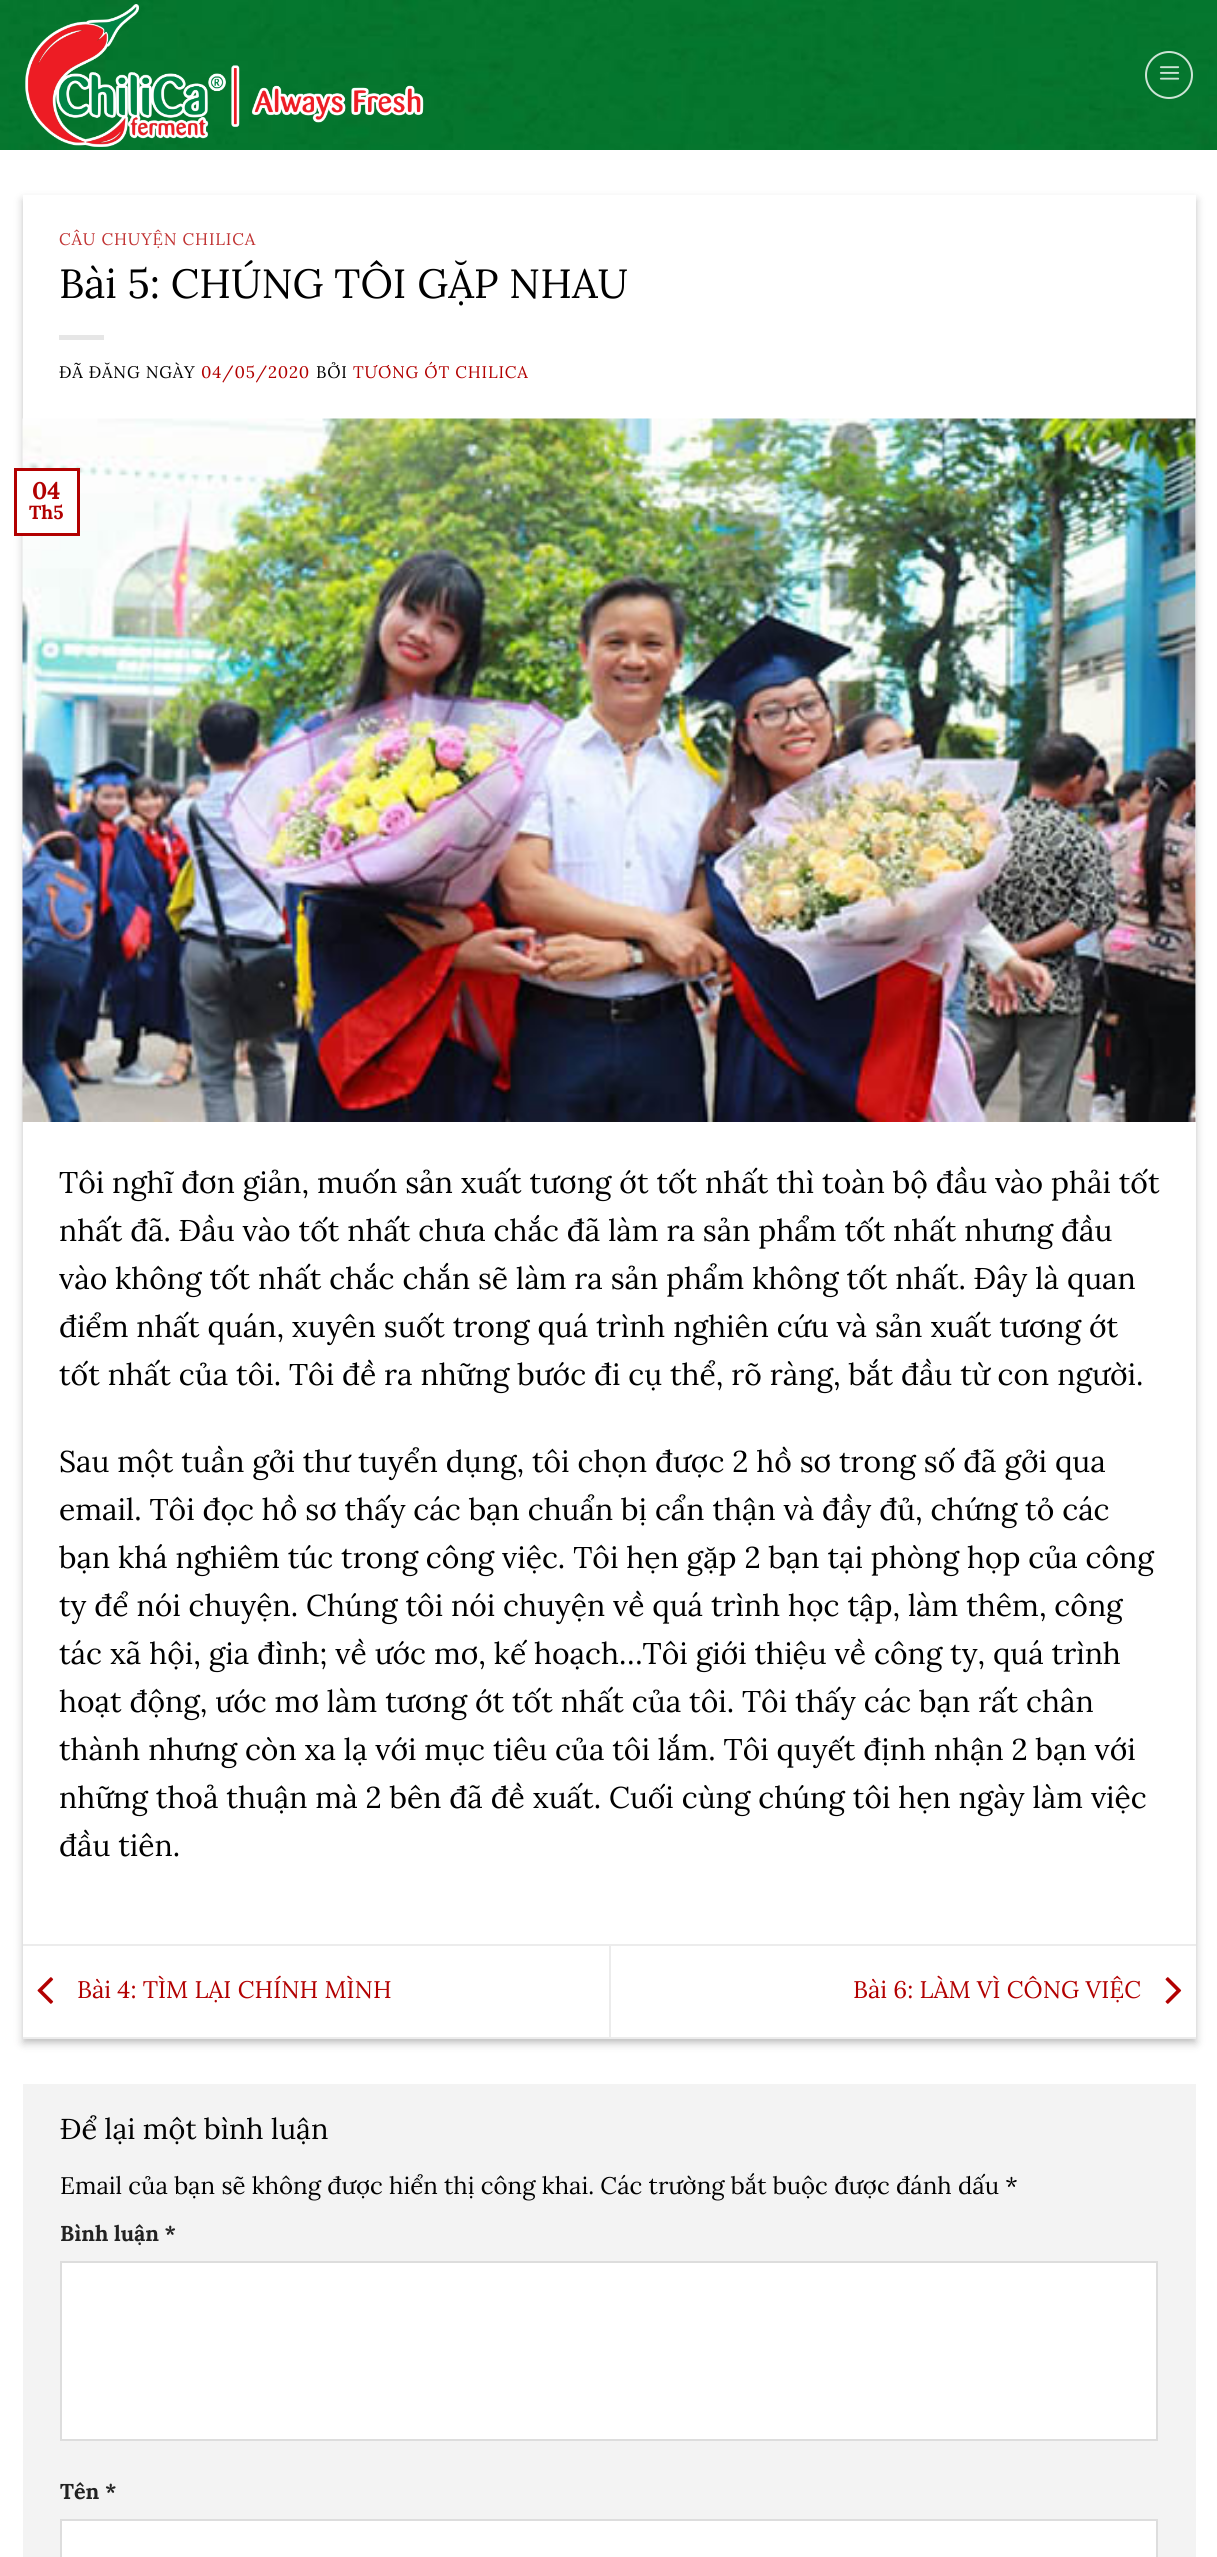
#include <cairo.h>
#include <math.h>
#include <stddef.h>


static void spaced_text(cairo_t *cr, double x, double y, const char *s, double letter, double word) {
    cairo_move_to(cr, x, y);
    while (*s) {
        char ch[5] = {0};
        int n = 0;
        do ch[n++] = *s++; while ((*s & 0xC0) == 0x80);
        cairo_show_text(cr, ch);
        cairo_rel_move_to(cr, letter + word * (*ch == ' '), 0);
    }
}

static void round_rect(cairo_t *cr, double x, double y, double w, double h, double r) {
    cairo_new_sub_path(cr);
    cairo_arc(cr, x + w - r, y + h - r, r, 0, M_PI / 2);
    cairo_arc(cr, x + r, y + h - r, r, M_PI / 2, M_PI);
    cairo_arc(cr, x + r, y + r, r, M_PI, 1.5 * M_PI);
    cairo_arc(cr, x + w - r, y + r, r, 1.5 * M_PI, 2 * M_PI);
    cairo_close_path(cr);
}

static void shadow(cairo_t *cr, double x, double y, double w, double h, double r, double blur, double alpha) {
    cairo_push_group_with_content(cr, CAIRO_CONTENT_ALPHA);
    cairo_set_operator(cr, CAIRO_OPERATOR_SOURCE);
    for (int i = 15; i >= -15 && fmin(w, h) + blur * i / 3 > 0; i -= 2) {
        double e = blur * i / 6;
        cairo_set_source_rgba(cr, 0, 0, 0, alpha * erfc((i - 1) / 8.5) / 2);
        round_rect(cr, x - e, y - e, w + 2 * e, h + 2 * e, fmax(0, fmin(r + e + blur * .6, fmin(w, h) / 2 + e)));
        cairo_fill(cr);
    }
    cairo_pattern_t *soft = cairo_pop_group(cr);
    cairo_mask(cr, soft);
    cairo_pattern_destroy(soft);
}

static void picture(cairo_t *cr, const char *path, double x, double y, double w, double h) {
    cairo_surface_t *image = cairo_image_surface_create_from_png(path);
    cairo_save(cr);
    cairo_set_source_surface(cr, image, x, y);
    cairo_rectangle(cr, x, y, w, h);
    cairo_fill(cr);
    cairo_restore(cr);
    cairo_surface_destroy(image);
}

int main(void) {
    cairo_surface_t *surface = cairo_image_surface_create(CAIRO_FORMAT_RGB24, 1217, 2557);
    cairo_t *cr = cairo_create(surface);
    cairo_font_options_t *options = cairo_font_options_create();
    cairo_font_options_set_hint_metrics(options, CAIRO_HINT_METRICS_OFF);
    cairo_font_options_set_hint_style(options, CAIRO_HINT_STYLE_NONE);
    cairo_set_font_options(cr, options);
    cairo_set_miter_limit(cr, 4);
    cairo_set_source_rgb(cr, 1, 1, 1);
    cairo_paint(cr);
    picture(cr, "img1.png", 0, 0, 1217, 150);
    picture(cr, "img2.png", 25, 4, 399, 143);
    cairo_arc(cr, 1169, 75, 23, 0, 2 * M_PI);
    cairo_set_source_rgba(cr, 1, 1, 1, 0.8);
    cairo_stroke(cr);
    picture(cr, "img3.png", 1159, 66, 21, 14);
    cairo_set_source_rgb(cr, 0, 0, 0);
    shadow(cr, 23, 200, 1173, 1843, 0, 4.5, 0.23);
    shadow(cr, 29, 206, 1161, 1831, 0, 4.5, 0.16);
    cairo_set_source_rgb(cr, 1, 1, 1);
    cairo_rectangle(cr, 23, 195, 1173, 1842);
    cairo_fill(cr);
    cairo_select_font_face(cr, "Lora", CAIRO_FONT_SLANT_NORMAL, CAIRO_FONT_WEIGHT_NORMAL);
    cairo_set_font_size(cr, 16.75);
    cairo_set_source_rgb(cr, 0.757, 0.2, 0.2);
    spaced_text(cr, 59, 245, "CÂU CHUYỆN CHILICA", 0.8, 0);
    cairo_set_font_size(cr, 40.75);
    cairo_set_source_rgb(cr, 0, 0, 0);
    cairo_move_to(cr, 59, 298);
    cairo_show_text(cr, "Bài 5: CHÚNG TÔI GẶP NHAU");
    cairo_set_source_rgb(cr, 0.902, 0.902, 0.902);
    cairo_rectangle(cr, 59, 335, 45, 5);
    cairo_fill(cr);
    cairo_set_font_size(cr, 16.75);
    cairo_set_source_rgb(cr, 0, 0, 0);
    spaced_text(cr, 59, 378, "ĐÃ ĐĂNG NGÀY", 0.8, 0);
    cairo_set_source_rgb(cr, 0.698, 0, 0);
    spaced_text(cr, 201, 378, "04/05/2020", 0.8, 0);
    cairo_set_source_rgb(cr, 0, 0, 0);
    spaced_text(cr, 316, 378, "BỞI", 0.8, 0);
    cairo_set_source_rgb(cr, 0.698, 0, 0);
    spaced_text(cr, 353, 378, "TƯƠNG ỚT CHILICA", 0.8, 0);
    picture(cr, "img4.png", 22, 418, 1174, 704);
    cairo_set_source_rgb(cr, 1, 1, 1);
    cairo_rectangle(cr, 15.5, 469.5, 63, 65);
    cairo_fill_preserve(cr);
    cairo_set_source_rgb(cr, 0.698, 0, 0);
    cairo_set_line_width(cr, 3);
    cairo_stroke(cr);
    cairo_select_font_face(cr, "Lora", CAIRO_FONT_SLANT_NORMAL, CAIRO_FONT_WEIGHT_BOLD);
    cairo_set_font_size(cr, 24);
    cairo_move_to(cr, 32, 499);
    cairo_show_text(cr, "04");
    cairo_set_font_size(cr, 19);
    cairo_move_to(cr, 29, 519);
    cairo_show_text(cr, "Th5");
    cairo_select_font_face(cr, "Lora", CAIRO_FONT_SLANT_NORMAL, CAIRO_FONT_WEIGHT_NORMAL);
    cairo_set_font_size(cr, 30);
    cairo_set_source_rgb(cr, 0, 0, 0);
    cairo_move_to(cr, 59, 1193);
    cairo_show_text(cr, "Tôi nghĩ đơn giản, muốn sản xuất tương ớt tốt nhất thì toàn bộ đầu vào phải tốt");
    cairo_move_to(cr, 59, 1241);
    cairo_show_text(cr, "nhất đã. Đầu vào tốt nhất chưa chắc đã làm ra sản phẩm tốt nhất nhưng đầu");
    cairo_move_to(cr, 59, 1289);
    cairo_show_text(cr, "vào không tốt nhất chắc chắn sẽ làm ra sản phẩm không tốt nhất. Đây là quan");
    cairo_move_to(cr, 59, 1337);
    cairo_show_text(cr, "điểm nhất quán, xuyên suốt trong quá trình nghiên cứu và sản xuất tương ớt");
    cairo_move_to(cr, 59, 1385);
    cairo_show_text(cr, "tốt nhất của tôi. Tôi đề ra những bước đi cụ thể, rõ ràng, bắt đầu từ con người.");
    cairo_move_to(cr, 59, 1472);
    cairo_show_text(cr, "Sau một tuần gởi thư tuyển dụng, tôi chọn được 2 hồ sơ trong số đã gởi qua");
    cairo_move_to(cr, 59, 1520);
    cairo_show_text(cr, "email. Tôi đọc hồ sơ thấy các bạn chuẩn bị cẩn thận và đầy đủ, chứng tỏ các");
    cairo_move_to(cr, 59, 1568);
    cairo_show_text(cr, "bạn khá nghiêm túc trong công việc. Tôi hẹn gặp 2 bạn tại phòng họp của công");
    cairo_move_to(cr, 59, 1616);
    cairo_show_text(cr, "ty để nói chuyện. Chúng tôi nói chuyện về quá trình học tập, làm thêm, công");
    cairo_move_to(cr, 59, 1664);
    cairo_show_text(cr, "tác xã hội, gia đình; về ước mơ, kế hoạch…Tôi giới thiệu về công ty, quá trình");
    cairo_move_to(cr, 59, 1712);
    cairo_show_text(cr, "hoạt động, ước mơ làm tương ớt tốt nhất của tôi. Tôi thấy các bạn rất chân");
    cairo_move_to(cr, 59, 1760);
    cairo_show_text(cr, "thành nhưng còn xa lạ với mục tiêu của tôi lắm. Tôi quyết định nhận 2 bạn với");
    cairo_move_to(cr, 59, 1808);
    cairo_show_text(cr, "những thoả thuận mà 2 bên đã đề xuất. Cuối cùng chúng tôi hẹn ngày làm việc");
    cairo_move_to(cr, 59, 1856);
    cairo_show_text(cr, "đầu tiên.");
    cairo_set_source_rgb(cr, 0.925, 0.925, 0.925);
    cairo_rectangle(cr, 23, 1944, 1173, 2);
    cairo_fill(cr);
    cairo_rectangle(cr, 23, 2037, 1173, 2);
    cairo_fill(cr);
    picture(cr, "img5.png", 37, 1977, 17, 27);
    cairo_set_font_size(cr, 24);
    cairo_set_source_rgb(cr, 0.698, 0, 0);
    cairo_move_to(cr, 77, 1998);
    cairo_show_text(cr, "Bài 4: TÌM LẠI CHÍNH MÌNH");
    cairo_set_source_rgb(cr, 0.925, 0.925, 0.925);
    cairo_rectangle(cr, 609, 1946, 2, 91);
    cairo_fill(cr);
    cairo_set_source_rgb(cr, 0.698, 0, 0);
    cairo_move_to(cr, 853, 1998);
    cairo_show_text(cr, "Bài 6: LÀM VÌ CÔNG VIỆC");
    picture(cr, "img6.png", 1165, 1977, 17, 27);
    cairo_set_source_rgb(cr, 0.953, 0.953, 0.953);
    cairo_rectangle(cr, 23, 2084, 1173, 473);
    cairo_fill(cr);
    cairo_set_font_size(cr, 28.75);
    cairo_set_source_rgb(cr, 0, 0, 0);
    cairo_move_to(cr, 60, 2139);
    cairo_show_text(cr, "Để lại một bình luận");
    cairo_set_font_size(cr, 24);
    cairo_move_to(cr, 60, 2194);
    cairo_show_text(cr, "Email của bạn sẽ không được hiển thị công khai. Các trường bắt buộc được đánh dấu *");
    cairo_select_font_face(cr, "Lora", CAIRO_FONT_SLANT_NORMAL, CAIRO_FONT_WEIGHT_BOLD);
    cairo_set_font_size(cr, 21.5);
    cairo_set_source_rgb(cr, 0.133, 0.133, 0.133);
    cairo_move_to(cr, 60, 2241);
    cairo_show_text(cr, "Bình luận *");
    cairo_set_source_rgb(cr, 1, 1, 1);
    cairo_rectangle(cr, 61, 2262, 1096, 178);
    cairo_fill_preserve(cr);
    cairo_set_source_rgb(cr, 0.867, 0.867, 0.867);
    cairo_set_line_width(cr, 2);
    cairo_stroke(cr);
    cairo_set_source_rgb(cr, 0.133, 0.133, 0.133);
    cairo_move_to(cr, 60, 2499);
    cairo_show_text(cr, "Tên *");
    cairo_set_source_rgb(cr, 1, 1, 1);
    cairo_rectangle(cr, 61, 2520, 1096, 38);
    cairo_fill_preserve(cr);
    cairo_set_source_rgb(cr, 0.867, 0.867, 0.867);
    cairo_stroke(cr);
    cairo_surface_write_to_png(surface, "page.png");
    cairo_font_options_destroy(options);
    cairo_destroy(cr);
    cairo_surface_destroy(surface);
    return 0;
}
